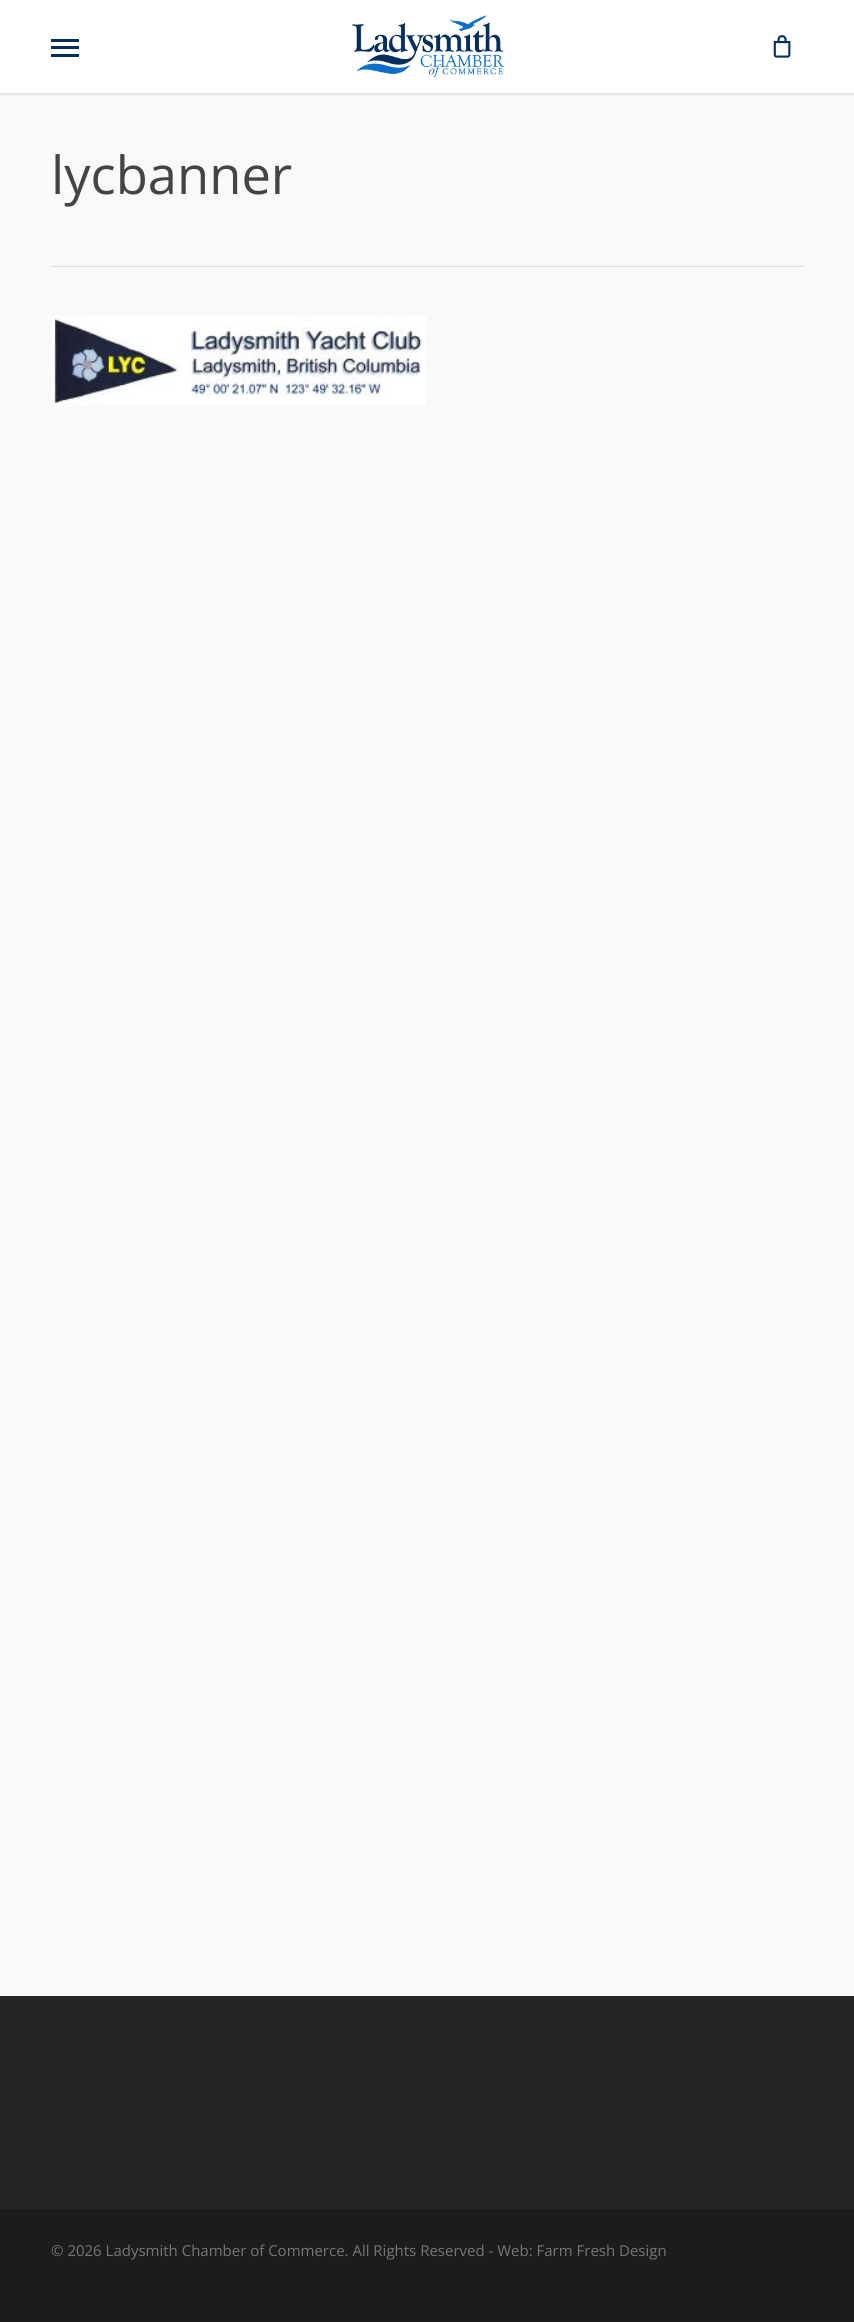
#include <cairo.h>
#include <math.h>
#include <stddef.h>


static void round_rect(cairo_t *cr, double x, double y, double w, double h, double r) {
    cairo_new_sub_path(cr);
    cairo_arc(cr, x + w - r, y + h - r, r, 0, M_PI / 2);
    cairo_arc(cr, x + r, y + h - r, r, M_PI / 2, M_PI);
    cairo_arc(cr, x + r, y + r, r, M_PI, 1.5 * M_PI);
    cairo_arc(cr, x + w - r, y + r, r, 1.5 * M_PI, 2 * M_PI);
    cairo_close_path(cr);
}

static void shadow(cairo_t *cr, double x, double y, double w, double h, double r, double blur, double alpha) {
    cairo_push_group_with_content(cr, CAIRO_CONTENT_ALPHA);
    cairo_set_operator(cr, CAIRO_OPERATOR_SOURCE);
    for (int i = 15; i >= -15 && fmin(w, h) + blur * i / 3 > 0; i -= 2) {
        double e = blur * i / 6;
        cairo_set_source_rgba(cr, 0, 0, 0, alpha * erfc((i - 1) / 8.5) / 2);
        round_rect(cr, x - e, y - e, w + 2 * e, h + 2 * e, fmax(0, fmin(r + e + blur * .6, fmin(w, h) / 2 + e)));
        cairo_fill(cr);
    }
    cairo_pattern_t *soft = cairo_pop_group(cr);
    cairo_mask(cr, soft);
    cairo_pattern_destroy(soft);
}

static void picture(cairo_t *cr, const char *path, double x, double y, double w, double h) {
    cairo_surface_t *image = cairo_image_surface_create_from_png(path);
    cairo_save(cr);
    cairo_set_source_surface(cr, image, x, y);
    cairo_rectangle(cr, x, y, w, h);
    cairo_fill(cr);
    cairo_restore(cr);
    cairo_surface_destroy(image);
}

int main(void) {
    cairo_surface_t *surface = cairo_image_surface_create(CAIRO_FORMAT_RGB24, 854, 2322);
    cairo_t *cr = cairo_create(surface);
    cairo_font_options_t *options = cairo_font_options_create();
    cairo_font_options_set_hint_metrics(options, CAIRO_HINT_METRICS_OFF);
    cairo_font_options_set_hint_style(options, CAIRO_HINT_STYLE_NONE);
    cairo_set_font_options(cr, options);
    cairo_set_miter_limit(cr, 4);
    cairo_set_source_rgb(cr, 0.145, 0.145, 0.145);
    cairo_paint(cr);
    cairo_set_source_rgb(cr, 0.973, 0.973, 0.973);
    cairo_rectangle(cr, 0, 93, 854, 1903);
    cairo_fill(cr);
    cairo_set_source_rgb(cr, 0, 0, 0);
    shadow(cr, 0, 0, 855, 93, 0, 2, 0.22);
    cairo_set_source_rgb(cr, 1, 1, 1);
    cairo_rectangle(cr, 0, 0, 854, 93);
    cairo_fill(cr);
    picture(cr, "img1.png", 352, 15, 152, 63);
    cairo_set_source_rgb(cr, 0.012, 0.184, 0.369);
    cairo_rectangle(cr, 51, 39, 28, 3);
    cairo_fill(cr);
    cairo_rectangle(cr, 51, 54, 28, 3);
    cairo_fill(cr);
    cairo_rectangle(cr, 51, 46, 28, 3);
    cairo_fill(cr);
    picture(cr, "img2.png", 773, 35, 18, 23);
    cairo_set_source_rgb(cr, 0.867, 0.867, 0.867);
    cairo_rectangle(cr, 51, 266, 753, 1);
    cairo_fill(cr);
    cairo_select_font_face(cr, "Open Sans", CAIRO_FONT_SLANT_NORMAL, CAIRO_FONT_WEIGHT_NORMAL);
    cairo_set_font_size(cr, 52.5);
    cairo_set_source_rgb(cr, 0.267, 0.267, 0.267);
    cairo_move_to(cr, 51, 194);
    cairo_show_text(cr, "lycbanner");
    picture(cr, "img3.png", 51, 316, 375, 89);
    cairo_set_source_rgb(cr, 0.11, 0.11, 0.11);
    cairo_rectangle(cr, 0, 2209, 854, 113);
    cairo_fill(cr);
    cairo_set_font_size(cr, 15);
    cairo_set_source_rgb(cr, 0.467, 0.467, 0.467);
    cairo_move_to(cr, 51, 2256);
    cairo_show_text(cr, "© 2026 Ladysmith Chamber of Commerce. All Rights Reserved - Web: Farm Fresh Design");
    cairo_surface_write_to_png(surface, "page.png");
    cairo_font_options_destroy(options);
    cairo_destroy(cr);
    cairo_surface_destroy(surface);
    return 0;
}
